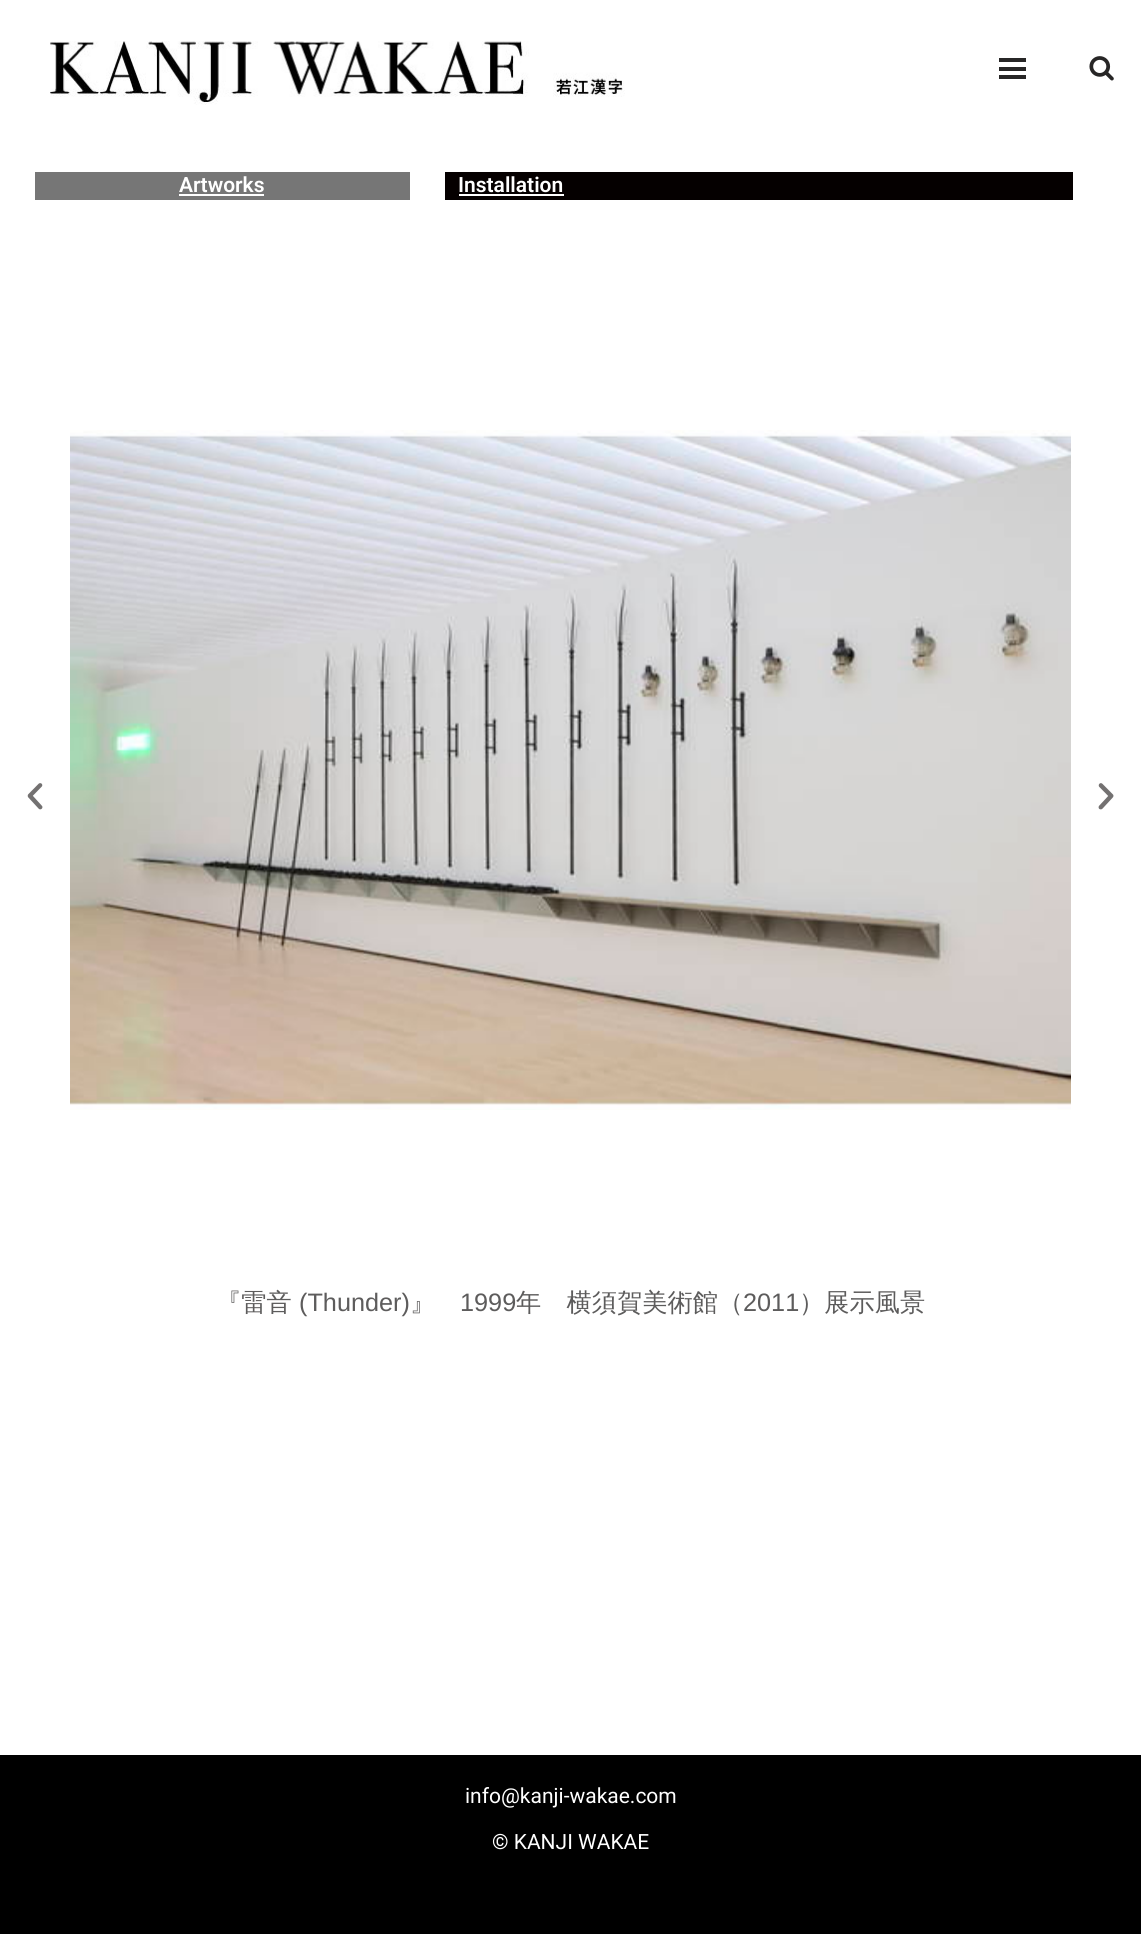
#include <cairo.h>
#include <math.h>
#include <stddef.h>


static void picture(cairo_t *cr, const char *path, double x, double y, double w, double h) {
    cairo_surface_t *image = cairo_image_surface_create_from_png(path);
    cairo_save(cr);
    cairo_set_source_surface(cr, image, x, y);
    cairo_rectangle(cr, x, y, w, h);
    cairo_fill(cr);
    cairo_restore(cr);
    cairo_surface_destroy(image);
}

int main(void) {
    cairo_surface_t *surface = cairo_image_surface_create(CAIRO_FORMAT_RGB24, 1141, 1934);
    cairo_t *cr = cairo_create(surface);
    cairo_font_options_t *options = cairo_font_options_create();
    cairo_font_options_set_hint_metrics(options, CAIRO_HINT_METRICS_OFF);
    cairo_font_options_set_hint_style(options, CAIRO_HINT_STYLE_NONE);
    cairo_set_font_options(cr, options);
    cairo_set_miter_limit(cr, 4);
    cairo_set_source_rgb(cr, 1, 1, 1);
    cairo_paint(cr);
    picture(cr, "img1.png", 50, 41, 575, 64);
    cairo_set_source_rgb(cr, 0.153, 0.149, 0.149);
    cairo_rectangle(cr, 999, 58, 27, 4);
    cairo_fill(cr);
    cairo_rectangle(cr, 999, 67, 27, 4);
    cairo_fill(cr);
    cairo_rectangle(cr, 999, 75, 27, 4);
    cairo_fill(cr);
    picture(cr, "img2.png", 1089, 56, 25, 25);
    cairo_set_source_rgb(cr, 0.463, 0.463, 0.463);
    cairo_rectangle(cr, 35, 172, 375, 28);
    cairo_fill(cr);
    cairo_select_font_face(cr, "Roboto SemiBold", CAIRO_FONT_SLANT_NORMAL, CAIRO_FONT_WEIGHT_NORMAL);
    cairo_set_font_size(cr, 21);
    cairo_set_source_rgb(cr, 1, 1, 1);
    cairo_move_to(cr, 179, 192);
    cairo_show_text(cr, "Artworks");
    cairo_rectangle(cr, 179, 194, 85, 2);
    cairo_fill(cr);
    cairo_set_source_rgb(cr, 0.02, 0, 0);
    cairo_rectangle(cr, 445, 172, 628, 28);
    cairo_fill(cr);
    cairo_set_source_rgb(cr, 1, 1, 1);
    cairo_move_to(cr, 458, 192);
    cairo_show_text(cr, "Installation");
    cairo_rectangle(cr, 459, 194, 105, 2);
    cairo_fill(cr);
    picture(cr, "img3.png", 27, 783, 16, 27);
    picture(cr, "img4.png", 1098, 783, 16, 27);
    picture(cr, "img5.png", 70, 430, 1001, 680);
    cairo_select_font_face(cr, "WenQuanYi Zen Hei Medium", CAIRO_FONT_SLANT_NORMAL, CAIRO_FONT_WEIGHT_NORMAL);
    cairo_set_font_size(cr, 25.25);
    cairo_set_source_rgb(cr, 0.365, 0.361, 0.361);
    cairo_move_to(cr, 216, 1311);
    cairo_show_text(cr, "『雷音");
    cairo_select_font_face(cr, "Liberation Sans", CAIRO_FONT_SLANT_NORMAL, CAIRO_FONT_WEIGHT_NORMAL);
    cairo_move_to(cr, 299, 1311);
    cairo_show_text(cr, "(Thunder)");
    cairo_select_font_face(cr, "WenQuanYi Zen Hei Medium", CAIRO_FONT_SLANT_NORMAL, CAIRO_FONT_WEIGHT_NORMAL);
    cairo_move_to(cr, 410, 1311);
    cairo_show_text(cr, "』");
    cairo_select_font_face(cr, "Liberation Sans", CAIRO_FONT_SLANT_NORMAL, CAIRO_FONT_WEIGHT_NORMAL);
    cairo_move_to(cr, 460, 1311);
    cairo_show_text(cr, "1999");
    cairo_select_font_face(cr, "WenQuanYi Zen Hei Medium", CAIRO_FONT_SLANT_NORMAL, CAIRO_FONT_WEIGHT_NORMAL);
    cairo_move_to(cr, 516, 1311);
    cairo_show_text(cr, "年　横須賀美術館（");
    cairo_select_font_face(cr, "Liberation Sans", CAIRO_FONT_SLANT_NORMAL, CAIRO_FONT_WEIGHT_NORMAL);
    cairo_move_to(cr, 743, 1311);
    cairo_show_text(cr, "2011");
    cairo_select_font_face(cr, "WenQuanYi Zen Hei Medium", CAIRO_FONT_SLANT_NORMAL, CAIRO_FONT_WEIGHT_NORMAL);
    cairo_move_to(cr, 799, 1311);
    cairo_show_text(cr, "）展示風景");
    cairo_set_source_rgb(cr, 0, 0, 0);
    cairo_rectangle(cr, 0, 1755, 1141, 179);
    cairo_fill(cr);
    cairo_select_font_face(cr, "Roboto", CAIRO_FONT_SLANT_NORMAL, CAIRO_FONT_WEIGHT_NORMAL);
    cairo_set_font_size(cr, 21);
    cairo_set_source_rgb(cr, 1, 1, 1);
    cairo_move_to(cr, 465, 1803);
    cairo_show_text(cr, "info@kanji-wakae.com");
    cairo_move_to(cr, 492, 1849);
    cairo_show_text(cr, "© KANJI WAKAE");
    cairo_surface_write_to_png(surface, "page.png");
    cairo_font_options_destroy(options);
    cairo_destroy(cr);
    cairo_surface_destroy(surface);
    return 0;
}
